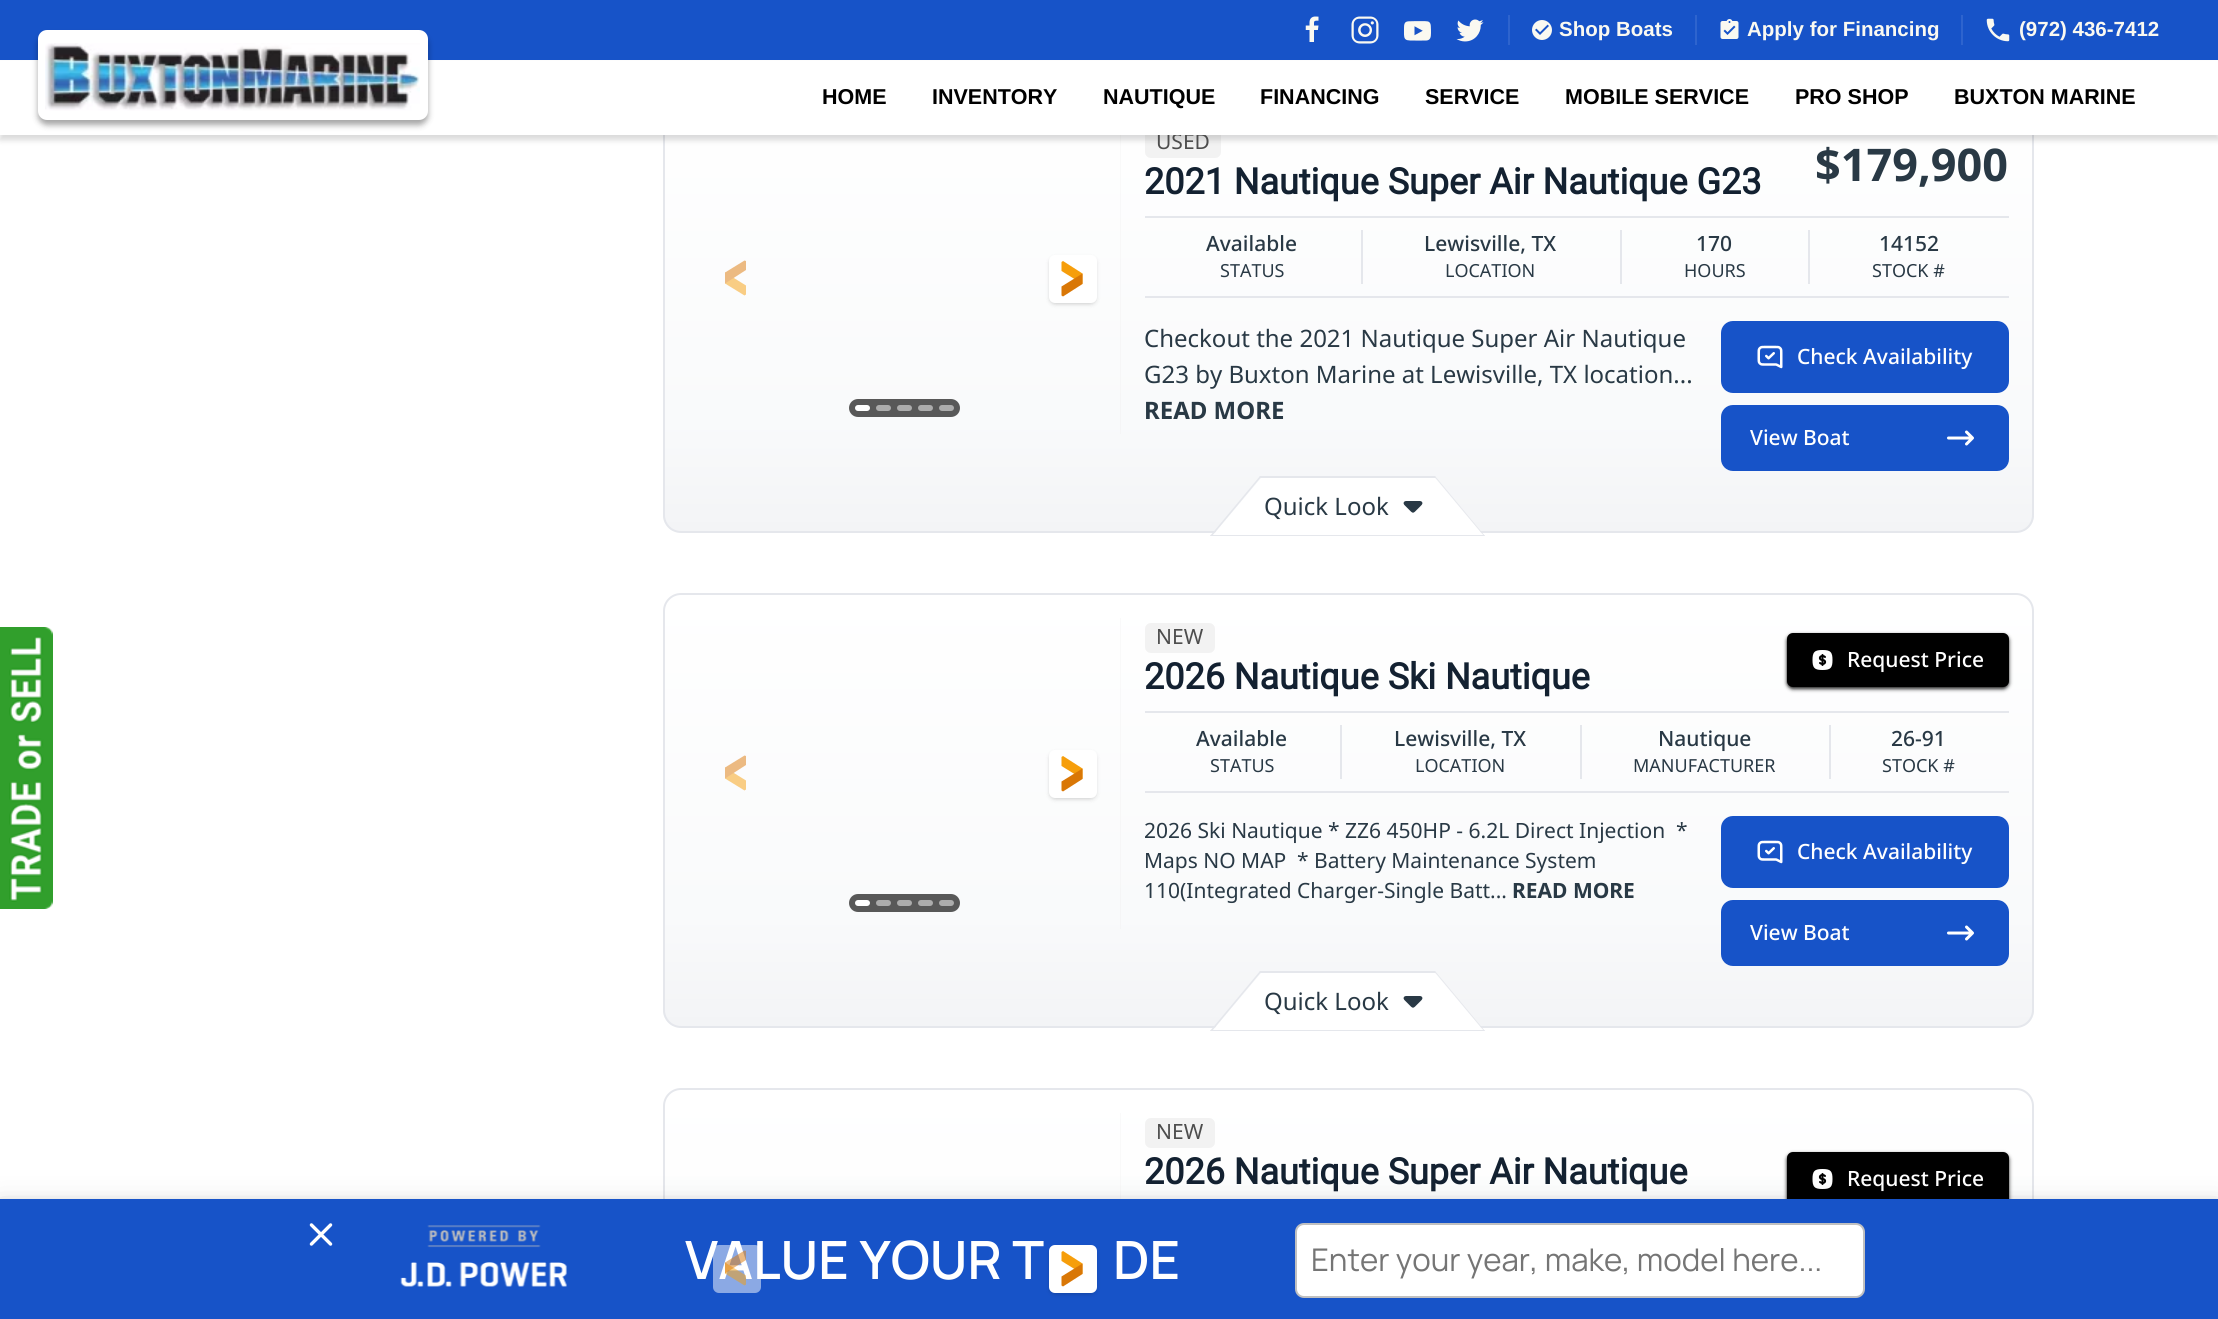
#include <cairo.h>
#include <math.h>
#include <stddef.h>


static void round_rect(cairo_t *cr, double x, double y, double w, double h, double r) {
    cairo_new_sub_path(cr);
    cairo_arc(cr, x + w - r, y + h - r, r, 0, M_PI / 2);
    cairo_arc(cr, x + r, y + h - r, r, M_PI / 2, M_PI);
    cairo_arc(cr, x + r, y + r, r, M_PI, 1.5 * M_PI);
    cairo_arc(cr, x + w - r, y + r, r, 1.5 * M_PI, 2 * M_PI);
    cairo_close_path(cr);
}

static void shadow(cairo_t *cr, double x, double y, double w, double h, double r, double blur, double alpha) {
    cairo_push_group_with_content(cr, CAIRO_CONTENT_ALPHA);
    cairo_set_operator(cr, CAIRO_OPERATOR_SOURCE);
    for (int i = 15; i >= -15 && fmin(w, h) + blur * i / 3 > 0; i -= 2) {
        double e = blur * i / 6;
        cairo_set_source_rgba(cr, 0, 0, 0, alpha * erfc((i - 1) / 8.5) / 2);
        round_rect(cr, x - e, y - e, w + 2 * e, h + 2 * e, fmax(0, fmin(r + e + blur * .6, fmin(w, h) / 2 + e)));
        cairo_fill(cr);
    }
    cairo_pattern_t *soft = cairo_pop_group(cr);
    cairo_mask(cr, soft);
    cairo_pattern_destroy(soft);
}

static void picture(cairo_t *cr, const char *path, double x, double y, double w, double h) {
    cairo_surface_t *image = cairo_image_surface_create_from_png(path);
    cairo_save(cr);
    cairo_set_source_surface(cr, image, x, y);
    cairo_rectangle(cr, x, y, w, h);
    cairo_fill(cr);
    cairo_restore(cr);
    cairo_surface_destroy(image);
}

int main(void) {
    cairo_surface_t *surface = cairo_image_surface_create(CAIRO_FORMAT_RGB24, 2218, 1319);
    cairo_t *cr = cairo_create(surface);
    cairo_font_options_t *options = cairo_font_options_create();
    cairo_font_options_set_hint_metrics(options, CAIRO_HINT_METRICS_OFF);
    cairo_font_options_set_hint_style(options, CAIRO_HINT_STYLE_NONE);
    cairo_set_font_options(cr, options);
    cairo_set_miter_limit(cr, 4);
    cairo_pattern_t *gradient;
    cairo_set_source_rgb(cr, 1, 1, 1);
    cairo_paint(cr);
    picture(cr, "img1.png", 0, 627, 53, 282);
    cairo_set_source_rgb(cr, 0.09, 0.325, 0.784);
    cairo_rectangle(cr, 0, 0, 2218, 60);
    cairo_fill(cr);
    picture(cr, "img2.png", 1305, 16, 14, 26);
    picture(cr, "img3.png", 1351, 16, 28, 28);
    picture(cr, "img4.png", 1404, 21, 27, 20);
    picture(cr, "img5.png", 1456, 19, 28, 23);
    cairo_set_source_rgb(cr, 0.18, 0.392, 0.808);
    cairo_rectangle(cr, 1508, 15, 2, 30);
    cairo_fill(cr);
    picture(cr, "img6.png", 1532, 20, 20, 20);
    cairo_select_font_face(cr, "Liberation Sans", CAIRO_FONT_SLANT_NORMAL, CAIRO_FONT_WEIGHT_BOLD);
    cairo_set_font_size(cr, 20.5);
    cairo_set_source_rgb(cr, 0.98, 0.976, 0.945);
    cairo_move_to(cr, 1559, 36);
    cairo_show_text(cr, "Shop Boats");
    cairo_set_source_rgb(cr, 0.18, 0.392, 0.808);
    cairo_rectangle(cr, 1695, 15, 2, 30);
    cairo_fill(cr);
    picture(cr, "img7.png", 1720, 19, 19, 20);
    cairo_set_source_rgb(cr, 0.98, 0.976, 0.945);
    cairo_move_to(cr, 1747, 36);
    cairo_show_text(cr, "Apply for Financing");
    cairo_set_source_rgb(cr, 0.18, 0.392, 0.808);
    cairo_rectangle(cr, 1961, 15, 2, 30);
    cairo_fill(cr);
    picture(cr, "img8.png", 1986, 18, 24, 24);
    cairo_set_source_rgb(cr, 0.98, 0.976, 0.945);
    cairo_move_to(cr, 2019, 36);
    cairo_show_text(cr, "(972) 436-7412");
    cairo_save(cr);
    round_rect(cr, 663, 98, 1371, 435, 18);
    cairo_clip(cr);
    gradient = cairo_pattern_create_linear(1349, 99, 1349, 531);
    cairo_pattern_add_color_stop_rgba(gradient, 0, 1, 1, 1, 1);
    cairo_pattern_add_color_stop_rgba(gradient, 0.75, 0.976, 0.98, 0.984, 1);
    cairo_pattern_add_color_stop_rgba(gradient, 1, 0.953, 0.957, 0.965, 1);
    cairo_set_source(cr, gradient);
    cairo_pattern_destroy(gradient);
    cairo_rectangle(cr, 663, 135, 1371, 396);
    cairo_fill(cr);
    cairo_restore(cr);
    gradient = cairo_pattern_create_linear(1349, 99, 1349, 531);
    cairo_pattern_add_color_stop_rgba(gradient, 0, 0.98, 0.98, 0.98, 1);
    cairo_pattern_add_color_stop_rgba(gradient, 0.75, 0.961, 0.961, 0.965, 1);
    cairo_pattern_add_color_stop_rgba(gradient, 1, 0.937, 0.941, 0.949, 1);
    cairo_set_source(cr, gradient);
    cairo_pattern_destroy(gradient);
    cairo_rectangle(cr, 1120, 135, 1, 299);
    cairo_fill(cr);
    round_rect(cr, 664, 99, 1369, 433, 17);
    cairo_set_source_rgb(cr, 0.898, 0.906, 0.922);
    cairo_stroke(cr);
    cairo_set_source_rgb(cr, 0.949, 0.949, 0.949);
    round_rect(cr, 1145, 128, 76, 30, 6);
    cairo_fill(cr);
    cairo_set_source_rgb(cr, 0, 0, 0);
    shadow(cr, 0, 65, 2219, 75, 0, 3, 0.15);
    cairo_select_font_face(cr, "Noto Sans", CAIRO_FONT_SLANT_NORMAL, CAIRO_FONT_WEIGHT_NORMAL);
    cairo_set_font_size(cr, 21);
    cairo_set_source_rgb(cr, 0.302, 0.302, 0.302);
    cairo_move_to(cr, 1156, 149);
    cairo_show_text(cr, "USED");
    cairo_set_source_rgb(cr, 1, 1, 1);
    cairo_rectangle(cr, 0, 61, 2218, 74);
    cairo_fill(cr);
    cairo_set_source_rgb(cr, 0, 0, 0);
    shadow(cr, 38, 35, 390, 90, 9, 3, 0.35);
    cairo_set_source_rgb(cr, 1, 1, 1);
    round_rect(cr, 38, 30, 390, 90, 9);
    cairo_fill(cr);
    picture(cr, "img9.png", 45, 43, 375, 68);
    cairo_select_font_face(cr, "Liberation Sans", CAIRO_FONT_SLANT_NORMAL, CAIRO_FONT_WEIGHT_BOLD);
    cairo_set_font_size(cr, 21.5);
    cairo_set_source_rgb(cr, 0, 0, 0);
    cairo_move_to(cr, 822, 104);
    cairo_show_text(cr, "HOME");
    cairo_move_to(cr, 932, 104);
    cairo_show_text(cr, "INVENTORY");
    cairo_move_to(cr, 1103, 104);
    cairo_show_text(cr, "NAUTIQUE");
    cairo_move_to(cr, 1260, 104);
    cairo_show_text(cr, "FINANCING");
    cairo_move_to(cr, 1425, 104);
    cairo_show_text(cr, "SERVICE");
    cairo_move_to(cr, 1565, 104);
    cairo_show_text(cr, "MOBILE SERVICE");
    cairo_move_to(cr, 1795, 104);
    cairo_show_text(cr, "PRO SHOP");
    cairo_move_to(cr, 1954, 104);
    cairo_show_text(cr, "BUXTON MARINE");
    cairo_set_source_rgb(cr, 0.973, 0.804, 0.518);
    cairo_new_path(cr);
    cairo_move_to(cr, 744.5, 295.5);
    cairo_line_to(cr, 725, 283.5);
    cairo_line_to(cr, 725, 272.5);
    cairo_line_to(cr, 746, 285.5);
    cairo_line_to(cr, 746, 294.5);
    cairo_close_path(cr);
    cairo_fill(cr);
    cairo_set_source_rgb(cr, 0.922, 0.729, 0.51);
    cairo_new_path(cr);
    cairo_move_to(cr, 744.5, 260.5);
    cairo_line_to(cr, 725, 272.5);
    cairo_line_to(cr, 725, 283.5);
    cairo_line_to(cr, 746, 270);
    cairo_line_to(cr, 746, 261);
    cairo_close_path(cr);
    cairo_fill(cr);
    cairo_set_source_rgb(cr, 0, 0, 0);
    shadow(cr, 1050, 258, 45, 45, 5, 1.5, 0.1);
    shadow(cr, 1049, 257, 48, 48, 6, 2, 0.1);
    cairo_set_source_rgb(cr, 1, 1, 1);
    round_rect(cr, 1049, 255, 48, 48, 6);
    cairo_fill(cr);
    cairo_set_source_rgb(cr, 0.961, 0.62, 0.043);
    cairo_new_path(cr);
    cairo_move_to(cr, 1063, 261);
    cairo_line_to(cr, 1082.5, 273.5);
    cairo_line_to(cr, 1082.5, 284);
    cairo_line_to(cr, 1061.5, 271);
    cairo_line_to(cr, 1061.5, 262);
    cairo_close_path(cr);
    cairo_fill(cr);
    cairo_set_source_rgb(cr, 0.851, 0.467, 0.024);
    cairo_new_path(cr);
    cairo_move_to(cr, 1063, 296.5);
    cairo_line_to(cr, 1082.5, 284);
    cairo_line_to(cr, 1082.5, 273.5);
    cairo_line_to(cr, 1061.5, 286.5);
    cairo_line_to(cr, 1061.5, 295.5);
    cairo_close_path(cr);
    cairo_fill(cr);
    cairo_set_source_rgb(cr, 0.345, 0.345, 0.345);
    round_rect(cr, 849, 399, 111, 18, 9);
    cairo_fill(cr);
    cairo_set_source_rgb(cr, 1, 1, 1);
    round_rect(cr, 855, 405, 15, 6, 3);
    cairo_fill(cr);
    cairo_set_source_rgb(cr, 0.675, 0.675, 0.675);
    round_rect(cr, 876, 405, 15, 6, 3);
    cairo_fill(cr);
    round_rect(cr, 897, 405, 15, 6, 3);
    cairo_fill(cr);
    round_rect(cr, 918, 405, 15, 6, 3);
    cairo_fill(cr);
    round_rect(cr, 939, 405, 15, 6, 3);
    cairo_fill(cr);
    cairo_select_font_face(cr, "Roboto", CAIRO_FONT_SLANT_NORMAL, CAIRO_FONT_WEIGHT_BOLD);
    cairo_set_font_size(cr, 36);
    cairo_set_source_rgb(cr, 0.078, 0.129, 0.192);
    cairo_move_to(cr, 1144, 194);
    cairo_show_text(cr, "2021 Nautique Super Air Nautique G23");
    cairo_select_font_face(cr, "Noto Sans", CAIRO_FONT_SLANT_NORMAL, CAIRO_FONT_WEIGHT_BOLD);
    cairo_set_font_size(cr, 45);
    cairo_set_source_rgb(cr, 0.161, 0.224, 0.271);
    cairo_move_to(cr, 1815, 181);
    cairo_show_text(cr, "$179,900");
    cairo_set_source_rgb(cr, 0.898, 0.906, 0.922);
    cairo_rectangle(cr, 1145, 216, 864, 2);
    cairo_fill(cr);
    cairo_select_font_face(cr, "Noto Sans Medium", CAIRO_FONT_SLANT_NORMAL, CAIRO_FONT_WEIGHT_NORMAL);
    cairo_set_font_size(cr, 21);
    cairo_set_source_rgb(cr, 0.161, 0.224, 0.271);
    cairo_move_to(cr, 1206, 251);
    cairo_show_text(cr, "Available");
    cairo_select_font_face(cr, "Noto Sans", CAIRO_FONT_SLANT_NORMAL, CAIRO_FONT_WEIGHT_NORMAL);
    cairo_set_font_size(cr, 18);
    cairo_move_to(cr, 1220, 277);
    cairo_show_text(cr, "STATUS");
    cairo_set_source_rgb(cr, 0.898, 0.906, 0.922);
    cairo_rectangle(cr, 1361, 230, 2, 54);
    cairo_fill(cr);
    cairo_select_font_face(cr, "Noto Sans Medium", CAIRO_FONT_SLANT_NORMAL, CAIRO_FONT_WEIGHT_NORMAL);
    cairo_set_font_size(cr, 21);
    cairo_set_source_rgb(cr, 0.161, 0.224, 0.271);
    cairo_move_to(cr, 1424, 251);
    cairo_show_text(cr, "Lewisville, TX");
    cairo_select_font_face(cr, "Noto Sans", CAIRO_FONT_SLANT_NORMAL, CAIRO_FONT_WEIGHT_NORMAL);
    cairo_set_font_size(cr, 18);
    cairo_move_to(cr, 1445, 277);
    cairo_show_text(cr, "LOCATION");
    cairo_set_source_rgb(cr, 0.898, 0.906, 0.922);
    cairo_rectangle(cr, 1620, 230, 2, 54);
    cairo_fill(cr);
    cairo_select_font_face(cr, "Noto Sans Medium", CAIRO_FONT_SLANT_NORMAL, CAIRO_FONT_WEIGHT_NORMAL);
    cairo_set_font_size(cr, 21);
    cairo_set_source_rgb(cr, 0.161, 0.224, 0.271);
    cairo_move_to(cr, 1696, 251);
    cairo_show_text(cr, "170");
    cairo_select_font_face(cr, "Noto Sans", CAIRO_FONT_SLANT_NORMAL, CAIRO_FONT_WEIGHT_NORMAL);
    cairo_set_font_size(cr, 18);
    cairo_move_to(cr, 1684, 277);
    cairo_show_text(cr, "HOURS");
    cairo_set_source_rgb(cr, 0.898, 0.906, 0.922);
    cairo_rectangle(cr, 1808, 230, 2, 54);
    cairo_fill(cr);
    cairo_select_font_face(cr, "Noto Sans Medium", CAIRO_FONT_SLANT_NORMAL, CAIRO_FONT_WEIGHT_NORMAL);
    cairo_set_font_size(cr, 21);
    cairo_set_source_rgb(cr, 0.161, 0.224, 0.271);
    cairo_move_to(cr, 1879, 251);
    cairo_show_text(cr, "14152");
    cairo_select_font_face(cr, "Noto Sans", CAIRO_FONT_SLANT_NORMAL, CAIRO_FONT_WEIGHT_NORMAL);
    cairo_set_font_size(cr, 18);
    cairo_move_to(cr, 1872, 277);
    cairo_show_text(cr, "STOCK #");
    cairo_set_source_rgb(cr, 0.898, 0.906, 0.922);
    cairo_rectangle(cr, 1145, 296, 864, 2);
    cairo_fill(cr);
    cairo_set_font_size(cr, 24);
    cairo_set_source_rgb(cr, 0.161, 0.224, 0.271);
    cairo_move_to(cr, 1144, 347);
    cairo_show_text(cr, "Checkout the 2021 Nautique Super Air Nautique");
    cairo_move_to(cr, 1144, 383);
    cairo_show_text(cr, "G23 by Buxton Marine at Lewisville, TX location...");
    cairo_select_font_face(cr, "Noto Sans", CAIRO_FONT_SLANT_NORMAL, CAIRO_FONT_WEIGHT_BOLD);
    cairo_move_to(cr, 1144, 419);
    cairo_show_text(cr, "READ MORE");
    cairo_set_source_rgb(cr, 0.09, 0.325, 0.784);
    round_rect(cr, 1721, 321, 288, 72, 12);
    cairo_fill(cr);
    picture(cr, "img10.png", 1757, 345, 26, 24);
    cairo_select_font_face(cr, "Noto Sans Medium", CAIRO_FONT_SLANT_NORMAL, CAIRO_FONT_WEIGHT_NORMAL);
    cairo_set_font_size(cr, 21);
    cairo_set_source_rgb(cr, 1, 1, 1);
    cairo_move_to(cr, 1797, 364);
    cairo_show_text(cr, "Check Availability");
    cairo_set_source_rgb(cr, 0.09, 0.325, 0.784);
    round_rect(cr, 1721, 405, 288, 66, 12);
    cairo_fill(cr);
    cairo_set_source_rgb(cr, 1, 1, 1);
    cairo_move_to(cr, 1750, 445);
    cairo_show_text(cr, "View Boat");
    cairo_new_path(cr);
    cairo_move_to(cr, 1948.5, 438);
    cairo_line_to(cr, 1972.5, 438);
    cairo_move_to(cr, 1972.5, 438);
    cairo_line_to(cr, 1966.5, 432);
    cairo_move_to(cr, 1972.5, 438);
    cairo_line_to(cr, 1966.5, 444);
    cairo_set_line_width(cr, 3);
    cairo_set_line_cap(cr, CAIRO_LINE_CAP_ROUND);
    cairo_set_line_join(cr, CAIRO_LINE_JOIN_ROUND);
    cairo_stroke(cr);
    cairo_new_path(cr);
    cairo_move_to(cr, 1261, 478);
    cairo_line_to(cr, 1430, 478);
    cairo_line_to(cr, 1382, 535);
    cairo_line_to(cr, 1213, 535);
    cairo_close_path(cr);
    cairo_fill(cr);
    cairo_set_source_rgb(cr, 0.898, 0.906, 0.922);
    cairo_new_path(cr);
    cairo_move_to(cr, 1260, 476);
    cairo_line_to(cr, 1431, 476);
    cairo_line_to(cr, 1430, 478);
    cairo_line_to(cr, 1259, 478);
    cairo_close_path(cr);
    cairo_fill(cr);
    cairo_new_path(cr);
    cairo_move_to(cr, 1211, 535);
    cairo_line_to(cr, 1382, 535);
    cairo_line_to(cr, 1381, 536);
    cairo_line_to(cr, 1210, 536);
    cairo_close_path(cr);
    cairo_fill(cr);
    cairo_new_path(cr);
    cairo_move_to(cr, 1260, 476);
    cairo_line_to(cr, 1262, 476);
    cairo_line_to(cr, 1212, 536);
    cairo_line_to(cr, 1210, 536);
    cairo_close_path(cr);
    cairo_fill(cr);
    cairo_set_source_rgb(cr, 1, 1, 1);
    cairo_new_path(cr);
    cairo_move_to(cr, 1265, 478);
    cairo_line_to(cr, 1435, 478);
    cairo_line_to(cr, 1483, 535);
    cairo_line_to(cr, 1313, 535);
    cairo_close_path(cr);
    cairo_fill(cr);
    cairo_set_source_rgb(cr, 0.898, 0.906, 0.922);
    cairo_new_path(cr);
    cairo_move_to(cr, 1264, 476);
    cairo_line_to(cr, 1435, 476);
    cairo_line_to(cr, 1436, 478);
    cairo_line_to(cr, 1265, 478);
    cairo_close_path(cr);
    cairo_fill(cr);
    cairo_new_path(cr);
    cairo_move_to(cr, 1434, 476);
    cairo_line_to(cr, 1435, 476);
    cairo_line_to(cr, 1485, 536);
    cairo_line_to(cr, 1484, 536);
    cairo_close_path(cr);
    cairo_fill(cr);
    cairo_new_path(cr);
    cairo_move_to(cr, 1313, 535);
    cairo_line_to(cr, 1484, 535);
    cairo_line_to(cr, 1485, 536);
    cairo_line_to(cr, 1314, 536);
    cairo_close_path(cr);
    cairo_fill(cr);
    cairo_select_font_face(cr, "Noto Sans", CAIRO_FONT_SLANT_NORMAL, CAIRO_FONT_WEIGHT_NORMAL);
    cairo_set_font_size(cr, 24);
    cairo_set_source_rgb(cr, 0.161, 0.224, 0.271);
    cairo_move_to(cr, 1264, 515);
    cairo_show_text(cr, "Quick Look");
    picture(cr, "img11.png", 1403, 501, 20, 12);
    cairo_save(cr);
    round_rect(cr, 663, 593, 1371, 435, 18);
    cairo_clip(cr);
    gradient = cairo_pattern_create_linear(1349, 594, 1349, 1026);
    cairo_pattern_add_color_stop_rgba(gradient, 0, 1, 1, 1, 1);
    cairo_pattern_add_color_stop_rgba(gradient, 0.75, 0.976, 0.98, 0.984, 1);
    cairo_pattern_add_color_stop_rgba(gradient, 1, 0.953, 0.957, 0.965, 1);
    cairo_set_source(cr, gradient);
    cairo_pattern_destroy(gradient);
    cairo_rectangle(cr, 663, 594, 1371, 432);
    cairo_fill(cr);
    cairo_restore(cr);
    gradient = cairo_pattern_create_linear(1349, 594, 1349, 1026);
    cairo_pattern_add_color_stop_rgba(gradient, 0, 0.98, 0.98, 0.98, 1);
    cairo_pattern_add_color_stop_rgba(gradient, 0.75, 0.961, 0.961, 0.965, 1);
    cairo_pattern_add_color_stop_rgba(gradient, 1, 0.937, 0.941, 0.949, 1);
    cairo_set_source(cr, gradient);
    cairo_pattern_destroy(gradient);
    cairo_rectangle(cr, 1120, 618, 1, 311);
    cairo_fill(cr);
    round_rect(cr, 664, 594, 1369, 433, 17);
    cairo_set_source_rgb(cr, 0.898, 0.906, 0.922);
    cairo_set_line_width(cr, 2);
    cairo_set_line_cap(cr, CAIRO_LINE_CAP_BUTT);
    cairo_set_line_join(cr, CAIRO_LINE_JOIN_MITER);
    cairo_stroke(cr);
    cairo_set_source_rgb(cr, 0.973, 0.804, 0.518);
    cairo_new_path(cr);
    cairo_move_to(cr, 744.5, 790.5);
    cairo_line_to(cr, 725, 778.5);
    cairo_line_to(cr, 725, 767.5);
    cairo_line_to(cr, 746, 780.5);
    cairo_line_to(cr, 746, 789.5);
    cairo_close_path(cr);
    cairo_fill(cr);
    cairo_set_source_rgb(cr, 0.922, 0.729, 0.51);
    cairo_new_path(cr);
    cairo_move_to(cr, 744.5, 755.5);
    cairo_line_to(cr, 725, 767.5);
    cairo_line_to(cr, 725, 778.5);
    cairo_line_to(cr, 746, 765);
    cairo_line_to(cr, 746, 756);
    cairo_close_path(cr);
    cairo_fill(cr);
    cairo_set_source_rgb(cr, 0, 0, 0);
    shadow(cr, 1050, 753, 45, 45, 5, 1.5, 0.1);
    shadow(cr, 1049, 752, 48, 48, 6, 2, 0.1);
    cairo_set_source_rgb(cr, 1, 1, 1);
    round_rect(cr, 1049, 750, 48, 48, 6);
    cairo_fill(cr);
    cairo_set_source_rgb(cr, 0.961, 0.62, 0.043);
    cairo_new_path(cr);
    cairo_move_to(cr, 1063, 756);
    cairo_line_to(cr, 1082.5, 768.5);
    cairo_line_to(cr, 1082.5, 779);
    cairo_line_to(cr, 1061.5, 766);
    cairo_line_to(cr, 1061.5, 757);
    cairo_close_path(cr);
    cairo_fill(cr);
    cairo_set_source_rgb(cr, 0.851, 0.467, 0.024);
    cairo_new_path(cr);
    cairo_move_to(cr, 1063, 791.5);
    cairo_line_to(cr, 1082.5, 779);
    cairo_line_to(cr, 1082.5, 768.5);
    cairo_line_to(cr, 1061.5, 781.5);
    cairo_line_to(cr, 1061.5, 790.5);
    cairo_close_path(cr);
    cairo_fill(cr);
    cairo_set_source_rgb(cr, 0.345, 0.345, 0.345);
    round_rect(cr, 849, 894, 111, 18, 9);
    cairo_fill(cr);
    cairo_set_source_rgb(cr, 1, 1, 1);
    round_rect(cr, 855, 900, 15, 6, 3);
    cairo_fill(cr);
    cairo_set_source_rgb(cr, 0.675, 0.675, 0.675);
    round_rect(cr, 876, 900, 15, 6, 3);
    cairo_fill(cr);
    round_rect(cr, 897, 900, 15, 6, 3);
    cairo_fill(cr);
    round_rect(cr, 918, 900, 15, 6, 3);
    cairo_fill(cr);
    round_rect(cr, 939, 900, 15, 6, 3);
    cairo_fill(cr);
    cairo_set_source_rgb(cr, 0.949, 0.949, 0.949);
    round_rect(cr, 1145, 623, 70, 30, 6);
    cairo_fill(cr);
    cairo_set_font_size(cr, 21);
    cairo_set_source_rgb(cr, 0.302, 0.302, 0.302);
    cairo_move_to(cr, 1156, 644);
    cairo_show_text(cr, "NEW");
    cairo_select_font_face(cr, "Roboto", CAIRO_FONT_SLANT_NORMAL, CAIRO_FONT_WEIGHT_BOLD);
    cairo_set_font_size(cr, 36);
    cairo_set_source_rgb(cr, 0.078, 0.129, 0.192);
    cairo_move_to(cr, 1144, 689);
    cairo_show_text(cr, "2026 Nautique Ski Nautique");
    cairo_set_source_rgb(cr, 0.2, 0.2, 0.2);
    shadow(cr, 1788, 636, 219, 51, 5, 1.5, 1);
    shadow(cr, 1787, 635, 222, 54, 6, 2, 1);
    cairo_set_source_rgb(cr, 0, 0, 0);
    round_rect(cr, 1787, 633, 222, 54, 6);
    cairo_fill(cr);
    picture(cr, "img12.png", 1812, 650, 21, 20);
    cairo_select_font_face(cr, "Noto Sans Medium", CAIRO_FONT_SLANT_NORMAL, CAIRO_FONT_WEIGHT_NORMAL);
    cairo_set_font_size(cr, 21);
    cairo_set_source_rgb(cr, 1, 1, 1);
    cairo_move_to(cr, 1847, 667);
    cairo_show_text(cr, "Request Price");
    cairo_set_source_rgb(cr, 0.898, 0.906, 0.922);
    cairo_rectangle(cr, 1145, 711, 864, 2);
    cairo_fill(cr);
    cairo_set_source_rgb(cr, 0.161, 0.224, 0.271);
    cairo_move_to(cr, 1196, 746);
    cairo_show_text(cr, "Available");
    cairo_select_font_face(cr, "Noto Sans", CAIRO_FONT_SLANT_NORMAL, CAIRO_FONT_WEIGHT_NORMAL);
    cairo_set_font_size(cr, 18);
    cairo_move_to(cr, 1210, 772);
    cairo_show_text(cr, "STATUS");
    cairo_set_source_rgb(cr, 0.898, 0.906, 0.922);
    cairo_rectangle(cr, 1340, 725, 2, 54);
    cairo_fill(cr);
    cairo_select_font_face(cr, "Noto Sans Medium", CAIRO_FONT_SLANT_NORMAL, CAIRO_FONT_WEIGHT_NORMAL);
    cairo_set_font_size(cr, 21);
    cairo_set_source_rgb(cr, 0.161, 0.224, 0.271);
    cairo_move_to(cr, 1394, 746);
    cairo_show_text(cr, "Lewisville, TX");
    cairo_select_font_face(cr, "Noto Sans", CAIRO_FONT_SLANT_NORMAL, CAIRO_FONT_WEIGHT_NORMAL);
    cairo_set_font_size(cr, 18);
    cairo_move_to(cr, 1415, 772);
    cairo_show_text(cr, "LOCATION");
    cairo_set_source_rgb(cr, 0.898, 0.906, 0.922);
    cairo_rectangle(cr, 1580, 725, 2, 54);
    cairo_fill(cr);
    cairo_select_font_face(cr, "Noto Sans Medium", CAIRO_FONT_SLANT_NORMAL, CAIRO_FONT_WEIGHT_NORMAL);
    cairo_set_font_size(cr, 21);
    cairo_set_source_rgb(cr, 0.161, 0.224, 0.271);
    cairo_move_to(cr, 1658, 746);
    cairo_show_text(cr, "Nautique");
    cairo_select_font_face(cr, "Noto Sans", CAIRO_FONT_SLANT_NORMAL, CAIRO_FONT_WEIGHT_NORMAL);
    cairo_set_font_size(cr, 18);
    cairo_move_to(cr, 1633, 772);
    cairo_show_text(cr, "MANUFACTURER");
    cairo_set_source_rgb(cr, 0.898, 0.906, 0.922);
    cairo_rectangle(cr, 1829, 725, 2, 54);
    cairo_fill(cr);
    cairo_select_font_face(cr, "Noto Sans Medium", CAIRO_FONT_SLANT_NORMAL, CAIRO_FONT_WEIGHT_NORMAL);
    cairo_set_font_size(cr, 21);
    cairo_set_source_rgb(cr, 0.161, 0.224, 0.271);
    cairo_move_to(cr, 1891, 746);
    cairo_show_text(cr, "26-91");
    cairo_select_font_face(cr, "Noto Sans", CAIRO_FONT_SLANT_NORMAL, CAIRO_FONT_WEIGHT_NORMAL);
    cairo_set_font_size(cr, 18);
    cairo_move_to(cr, 1882, 772);
    cairo_show_text(cr, "STOCK #");
    cairo_set_source_rgb(cr, 0.898, 0.906, 0.922);
    cairo_rectangle(cr, 1145, 791, 864, 2);
    cairo_fill(cr);
    cairo_set_font_size(cr, 21);
    cairo_set_source_rgb(cr, 0.161, 0.224, 0.271);
    cairo_move_to(cr, 1144, 838);
    cairo_show_text(cr, "2026 Ski Nautique * ZZ6 450HP - 6.2L Direct Injection");
    cairo_move_to(cr, 1676, 838);
    cairo_show_text(cr, "*");
    cairo_move_to(cr, 1144, 868);
    cairo_show_text(cr, "Maps NO MAP");
    cairo_move_to(cr, 1297, 868);
    cairo_show_text(cr, "* Battery Maintenance System");
    cairo_move_to(cr, 1144, 898);
    cairo_show_text(cr, "110(Integrated Charger-Single Batt...");
    cairo_select_font_face(cr, "Noto Sans", CAIRO_FONT_SLANT_NORMAL, CAIRO_FONT_WEIGHT_BOLD);
    cairo_move_to(cr, 1512, 898);
    cairo_show_text(cr, "READ MORE");
    cairo_set_source_rgb(cr, 0.09, 0.325, 0.784);
    round_rect(cr, 1721, 816, 288, 72, 12);
    cairo_fill(cr);
    picture(cr, "img10.png", 1757, 840, 26, 24);
    cairo_select_font_face(cr, "Noto Sans Medium", CAIRO_FONT_SLANT_NORMAL, CAIRO_FONT_WEIGHT_NORMAL);
    cairo_set_source_rgb(cr, 1, 1, 1);
    cairo_move_to(cr, 1797, 859);
    cairo_show_text(cr, "Check Availability");
    cairo_set_source_rgb(cr, 0.09, 0.325, 0.784);
    round_rect(cr, 1721, 900, 288, 66, 12);
    cairo_fill(cr);
    cairo_set_source_rgb(cr, 1, 1, 1);
    cairo_move_to(cr, 1750, 940);
    cairo_show_text(cr, "View Boat");
    cairo_new_path(cr);
    cairo_move_to(cr, 1948.5, 933);
    cairo_line_to(cr, 1972.5, 933);
    cairo_move_to(cr, 1972.5, 933);
    cairo_line_to(cr, 1966.5, 927);
    cairo_move_to(cr, 1972.5, 933);
    cairo_line_to(cr, 1966.5, 939);
    cairo_set_line_width(cr, 3);
    cairo_set_line_cap(cr, CAIRO_LINE_CAP_ROUND);
    cairo_set_line_join(cr, CAIRO_LINE_JOIN_ROUND);
    cairo_stroke(cr);
    cairo_new_path(cr);
    cairo_move_to(cr, 1261, 973);
    cairo_line_to(cr, 1430, 973);
    cairo_line_to(cr, 1382, 1030);
    cairo_line_to(cr, 1213, 1030);
    cairo_close_path(cr);
    cairo_fill(cr);
    cairo_set_source_rgb(cr, 0.898, 0.906, 0.922);
    cairo_new_path(cr);
    cairo_move_to(cr, 1260, 971);
    cairo_line_to(cr, 1431, 971);
    cairo_line_to(cr, 1430, 973);
    cairo_line_to(cr, 1259, 973);
    cairo_close_path(cr);
    cairo_fill(cr);
    cairo_new_path(cr);
    cairo_move_to(cr, 1211, 1030);
    cairo_line_to(cr, 1382, 1030);
    cairo_line_to(cr, 1381, 1031);
    cairo_line_to(cr, 1210, 1031);
    cairo_close_path(cr);
    cairo_fill(cr);
    cairo_new_path(cr);
    cairo_move_to(cr, 1260, 971);
    cairo_line_to(cr, 1262, 971);
    cairo_line_to(cr, 1212, 1031);
    cairo_line_to(cr, 1210, 1031);
    cairo_close_path(cr);
    cairo_fill(cr);
    cairo_set_source_rgb(cr, 1, 1, 1);
    cairo_new_path(cr);
    cairo_move_to(cr, 1265, 973);
    cairo_line_to(cr, 1435, 973);
    cairo_line_to(cr, 1483, 1030);
    cairo_line_to(cr, 1313, 1030);
    cairo_close_path(cr);
    cairo_fill(cr);
    cairo_set_source_rgb(cr, 0.898, 0.906, 0.922);
    cairo_new_path(cr);
    cairo_move_to(cr, 1264, 971);
    cairo_line_to(cr, 1435, 971);
    cairo_line_to(cr, 1436, 973);
    cairo_line_to(cr, 1265, 973);
    cairo_close_path(cr);
    cairo_fill(cr);
    cairo_new_path(cr);
    cairo_move_to(cr, 1434, 971);
    cairo_line_to(cr, 1435, 971);
    cairo_line_to(cr, 1485, 1031);
    cairo_line_to(cr, 1484, 1031);
    cairo_close_path(cr);
    cairo_fill(cr);
    cairo_new_path(cr);
    cairo_move_to(cr, 1313, 1030);
    cairo_line_to(cr, 1484, 1030);
    cairo_line_to(cr, 1485, 1031);
    cairo_line_to(cr, 1314, 1031);
    cairo_close_path(cr);
    cairo_fill(cr);
    cairo_select_font_face(cr, "Noto Sans", CAIRO_FONT_SLANT_NORMAL, CAIRO_FONT_WEIGHT_NORMAL);
    cairo_set_font_size(cr, 24);
    cairo_set_source_rgb(cr, 0.161, 0.224, 0.271);
    cairo_move_to(cr, 1264, 1010);
    cairo_show_text(cr, "Quick Look");
    picture(cr, "img11.png", 1403, 996, 20, 12);
    cairo_save(cr);
    round_rect(cr, 663, 1088, 1371, 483, 18);
    cairo_clip(cr);
    gradient = cairo_pattern_create_linear(1349, 1089, 1349, 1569);
    cairo_pattern_add_color_stop_rgba(gradient, 0, 1, 1, 1, 1);
    cairo_pattern_add_color_stop_rgba(gradient, 0.75, 0.976, 0.98, 0.984, 1);
    cairo_pattern_add_color_stop_rgba(gradient, 1, 0.953, 0.957, 0.965, 1);
    cairo_set_source(cr, gradient);
    cairo_pattern_destroy(gradient);
    cairo_rectangle(cr, 663, 1089, 1371, 110);
    cairo_fill(cr);
    cairo_restore(cr);
    gradient = cairo_pattern_create_linear(1349, 1089, 1349, 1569);
    cairo_pattern_add_color_stop_rgba(gradient, 0, 0.98, 0.98, 0.98, 1);
    cairo_pattern_add_color_stop_rgba(gradient, 0.75, 0.961, 0.961, 0.965, 1);
    cairo_pattern_add_color_stop_rgba(gradient, 1, 0.937, 0.941, 0.949, 1);
    cairo_set_source(cr, gradient);
    cairo_pattern_destroy(gradient);
    cairo_rectangle(cr, 1120, 1113, 1, 86);
    cairo_fill(cr);
    round_rect(cr, 664, 1089, 1369, 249, 17);
    cairo_set_source_rgb(cr, 0.898, 0.906, 0.922);
    cairo_set_line_width(cr, 2);
    cairo_set_line_cap(cr, CAIRO_LINE_CAP_BUTT);
    cairo_set_line_join(cr, CAIRO_LINE_JOIN_MITER);
    cairo_stroke(cr);
    cairo_set_source_rgb(cr, 0.949, 0.949, 0.949);
    round_rect(cr, 1145, 1118, 70, 30, 6);
    cairo_fill(cr);
    cairo_set_font_size(cr, 21);
    cairo_set_source_rgb(cr, 0.302, 0.302, 0.302);
    cairo_move_to(cr, 1156, 1139);
    cairo_show_text(cr, "NEW");
    cairo_select_font_face(cr, "Roboto", CAIRO_FONT_SLANT_NORMAL, CAIRO_FONT_WEIGHT_BOLD);
    cairo_set_font_size(cr, 36);
    cairo_set_source_rgb(cr, 0.078, 0.129, 0.192);
    cairo_move_to(cr, 1144, 1184);
    cairo_show_text(cr, "2026 Nautique Super Air Nautique");
    cairo_set_source_rgb(cr, 0.2, 0.2, 0.2);
    shadow(cr, 1788, 1155, 219, 51, 5, 1.5, 1);
    shadow(cr, 1787, 1154, 222, 54, 6, 2, 1);
    cairo_set_source_rgb(cr, 0, 0, 0);
    round_rect(cr, 1787, 1152, 222, 54, 6);
    cairo_fill(cr);
    picture(cr, "img12.png", 1812, 1169, 21, 20);
    cairo_select_font_face(cr, "Noto Sans Medium", CAIRO_FONT_SLANT_NORMAL, CAIRO_FONT_WEIGHT_NORMAL);
    cairo_set_font_size(cr, 21);
    cairo_set_source_rgb(cr, 1, 1, 1);
    cairo_move_to(cr, 1847, 1186);
    cairo_show_text(cr, "Request Price");
    cairo_set_source_rgb(cr, 0, 0, 0);
    shadow(cr, 0, 1208, 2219, 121, 0, 15, 0.19);
    shadow(cr, 0, 1205, 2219, 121, 0, 6, 0.2);
    cairo_set_source_rgb(cr, 0.09, 0.325, 0.784);
    cairo_rectangle(cr, 0, 1199, 2218, 120);
    cairo_fill(cr);
    cairo_select_font_face(cr, "Manrope SemiBold", CAIRO_FONT_SLANT_NORMAL, CAIRO_FONT_WEIGHT_NORMAL);
    cairo_set_font_size(cr, 52.75);
    cairo_set_source_rgb(cr, 1, 1, 1);
    cairo_move_to(cr, 685, 1279);
    cairo_show_text(cr, "VALUE YOUR T");
    cairo_set_source_rgba(cr, 1, 1, 1, 0.5);
    round_rect(cr, 713, 1245, 48, 48, 6);
    cairo_fill(cr);
    cairo_set_source_rgba(cr, 0.961, 0.62, 0.043, 0.5);
    cairo_new_path(cr);
    cairo_move_to(cr, 744.5, 1285.5);
    cairo_line_to(cr, 725, 1273.5);
    cairo_line_to(cr, 725, 1262.5);
    cairo_line_to(cr, 746, 1275.5);
    cairo_line_to(cr, 746, 1284.5);
    cairo_close_path(cr);
    cairo_fill(cr);
    cairo_set_source_rgba(cr, 0.851, 0.467, 0.024, 0.5);
    cairo_new_path(cr);
    cairo_move_to(cr, 744.5, 1250.5);
    cairo_line_to(cr, 725, 1262.5);
    cairo_line_to(cr, 725, 1273.5);
    cairo_line_to(cr, 746, 1260);
    cairo_line_to(cr, 746, 1251);
    cairo_close_path(cr);
    cairo_fill(cr);
    cairo_set_source_rgb(cr, 0, 0, 0);
    shadow(cr, 1050, 1248, 45, 45, 5, 1.5, 0.1);
    shadow(cr, 1049, 1247, 48, 48, 6, 2, 0.1);
    cairo_set_source_rgb(cr, 1, 1, 1);
    round_rect(cr, 1049, 1245, 48, 48, 6);
    cairo_fill(cr);
    cairo_set_source_rgb(cr, 0.961, 0.62, 0.043);
    cairo_new_path(cr);
    cairo_move_to(cr, 1063, 1251);
    cairo_line_to(cr, 1082.5, 1263.5);
    cairo_line_to(cr, 1082.5, 1274);
    cairo_line_to(cr, 1061.5, 1261);
    cairo_line_to(cr, 1061.5, 1252);
    cairo_close_path(cr);
    cairo_fill(cr);
    cairo_set_source_rgb(cr, 0.851, 0.467, 0.024);
    cairo_new_path(cr);
    cairo_move_to(cr, 1063, 1286.5);
    cairo_line_to(cr, 1082.5, 1274);
    cairo_line_to(cr, 1082.5, 1263.5);
    cairo_line_to(cr, 1061.5, 1276.5);
    cairo_line_to(cr, 1061.5, 1285.5);
    cairo_close_path(cr);
    cairo_fill(cr);
    picture(cr, "img13.png", 309, 1223, 24, 23);
    picture(cr, "img14.png", 400, 1225, 167, 62);
    cairo_set_source_rgb(cr, 1, 1, 1);
    cairo_move_to(cr, 1113, 1279);
    cairo_show_text(cr, "DE");
    round_rect(cr, 1296, 1224, 568, 73, 8);
    cairo_fill_preserve(cr);
    cairo_set_source_rgb(cr, 0.753, 0.753, 0.753);
    cairo_stroke(cr);
    cairo_select_font_face(cr, "Manrope", CAIRO_FONT_SLANT_NORMAL, CAIRO_FONT_WEIGHT_NORMAL);
    cairo_set_font_size(cr, 31.25);
    cairo_set_source_rgb(cr, 0.459, 0.459, 0.459);
    cairo_move_to(cr, 1311, 1271);
    cairo_show_text(cr, "Enter your year, make, model here...");
    cairo_surface_write_to_png(surface, "page.png");
    cairo_font_options_destroy(options);
    cairo_destroy(cr);
    cairo_surface_destroy(surface);
    return 0;
}
